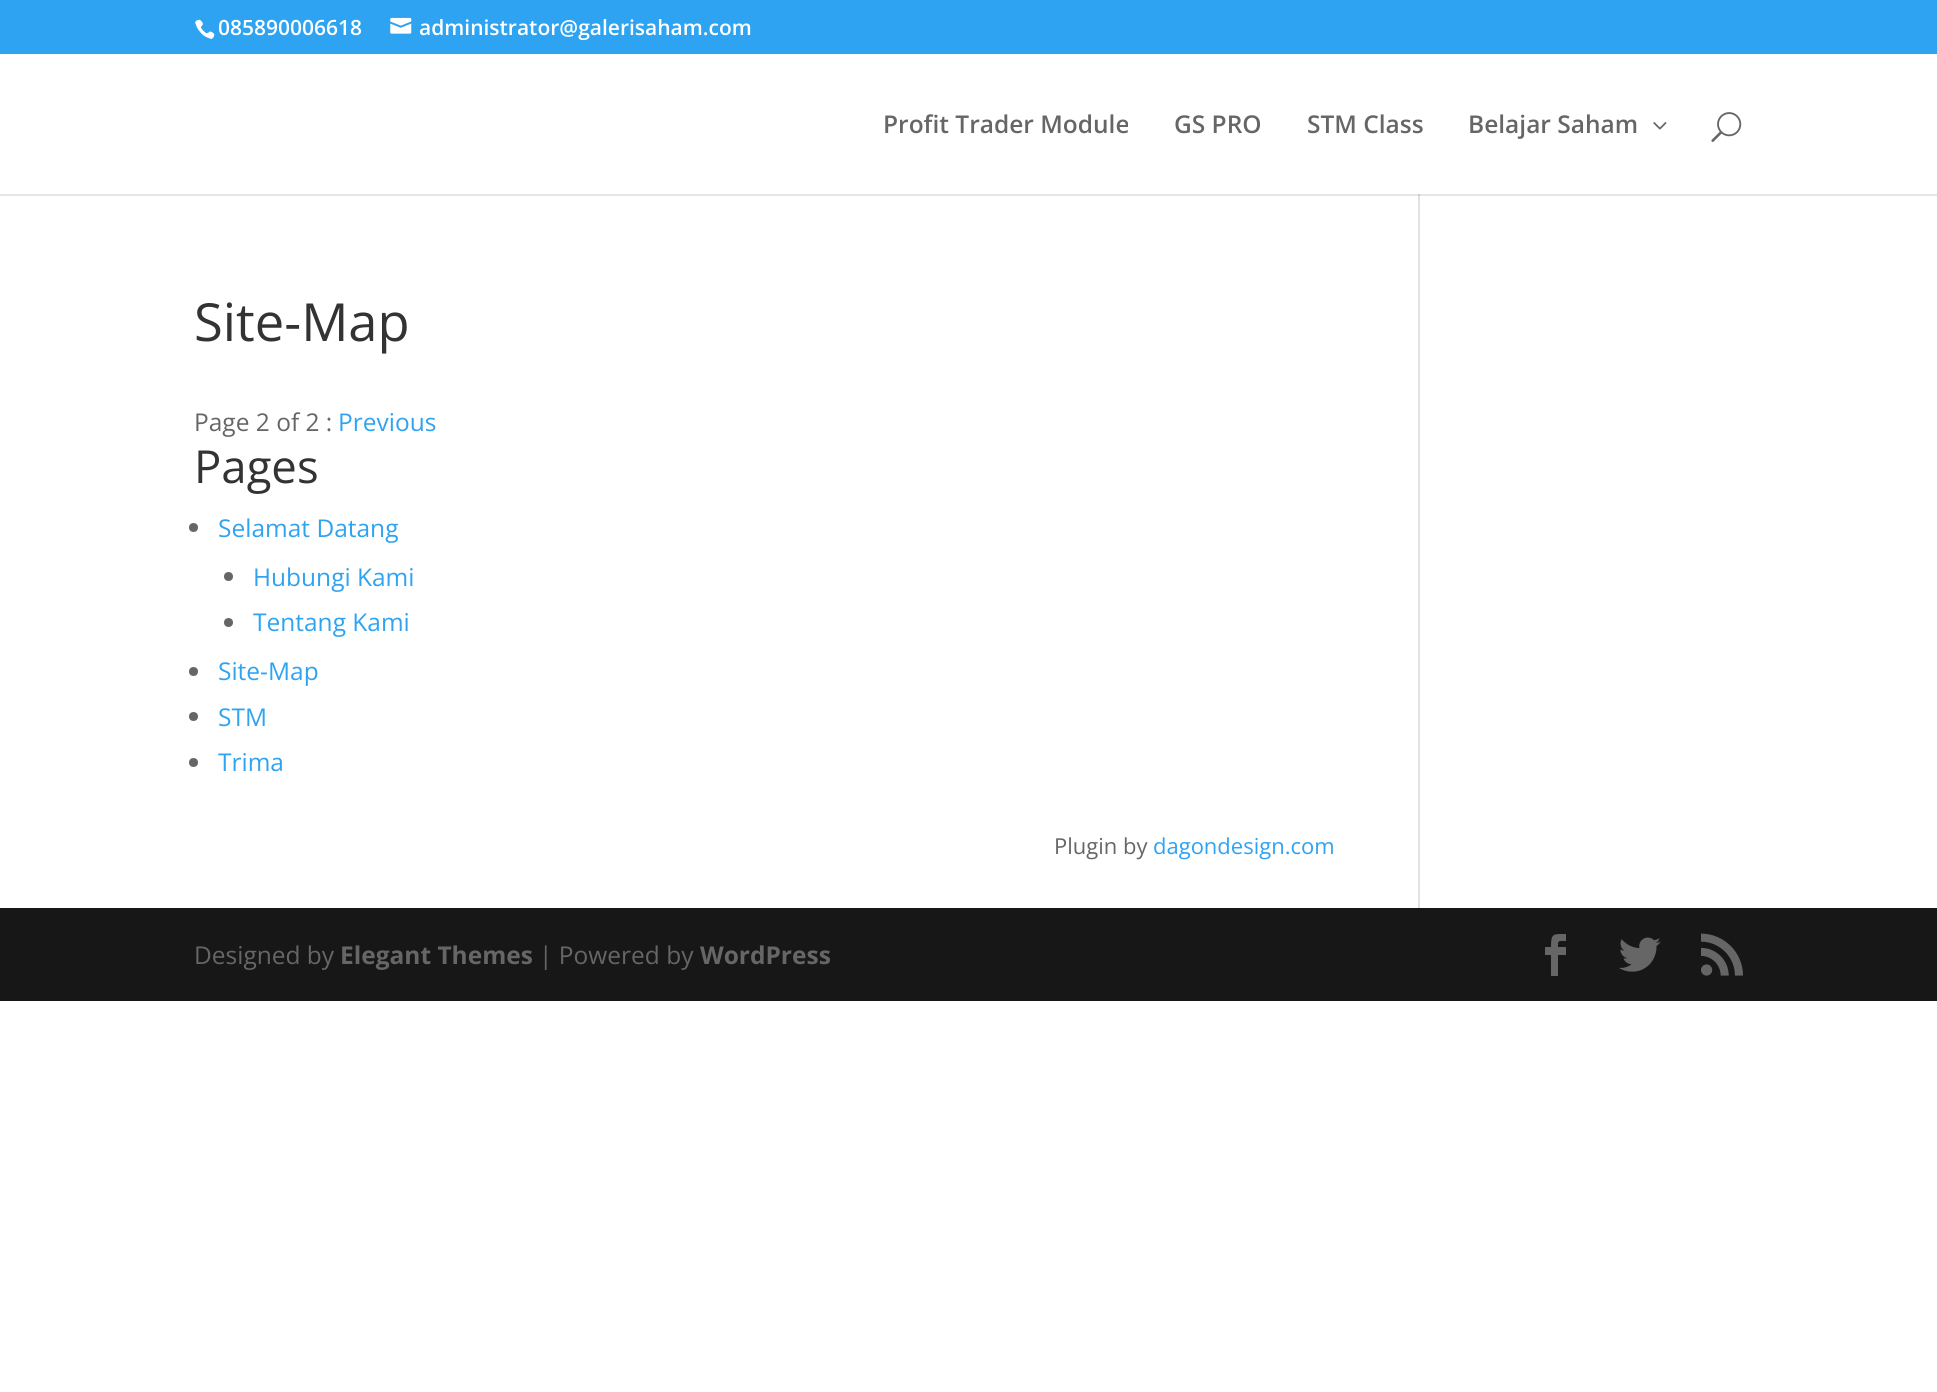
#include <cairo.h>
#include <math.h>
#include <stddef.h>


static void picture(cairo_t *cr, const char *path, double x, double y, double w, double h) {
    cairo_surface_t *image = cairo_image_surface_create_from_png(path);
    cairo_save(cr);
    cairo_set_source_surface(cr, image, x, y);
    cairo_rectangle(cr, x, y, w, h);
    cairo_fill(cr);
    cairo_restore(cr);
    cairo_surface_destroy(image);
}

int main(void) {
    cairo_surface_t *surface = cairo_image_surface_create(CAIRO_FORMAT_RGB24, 1937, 1392);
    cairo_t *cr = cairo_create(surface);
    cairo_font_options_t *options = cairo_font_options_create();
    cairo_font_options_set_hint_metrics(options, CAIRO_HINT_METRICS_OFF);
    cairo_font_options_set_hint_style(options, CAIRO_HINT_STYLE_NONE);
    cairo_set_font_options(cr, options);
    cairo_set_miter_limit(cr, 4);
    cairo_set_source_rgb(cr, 1, 1, 1);
    cairo_paint(cr);
    cairo_set_source_rgb(cr, 0.902, 0.902, 0.902);
    cairo_rectangle(cr, 0, 194, 1937, 2);
    cairo_fill(cr);
    cairo_set_source_rgb(cr, 0.18, 0.639, 0.949);
    cairo_rectangle(cr, 0, 0, 1937, 54);
    cairo_fill(cr);
    picture(cr, "img1.png", 195, 19, 20, 20);
    cairo_select_font_face(cr, "Open Sans SemiBold", CAIRO_FONT_SLANT_NORMAL, CAIRO_FONT_WEIGHT_NORMAL);
    cairo_set_font_size(cr, 21);
    cairo_set_source_rgb(cr, 1, 1, 1);
    cairo_move_to(cr, 218, 35);
    cairo_show_text(cr, "085890006618");
    picture(cr, "img2.png", 390, 17, 22, 17);
    cairo_move_to(cr, 419, 35);
    cairo_show_text(cr, "administrator@galerisaham.com");
    cairo_set_font_size(cr, 24.5);
    cairo_set_source_rgb(cr, 0.4, 0.4, 0.4);
    cairo_move_to(cr, 883, 133);
    cairo_show_text(cr, "Profit Trader Module");
    cairo_move_to(cr, 1174, 133);
    cairo_show_text(cr, "GS PRO");
    cairo_move_to(cr, 1307, 133);
    cairo_show_text(cr, "STM Class");
    cairo_move_to(cr, 1468, 133);
    cairo_show_text(cr, "Belajar Saham");
    picture(cr, "img3.png", 1653, 122, 14, 8);
    picture(cr, "img4.png", 1711, 112, 31, 30);
    cairo_select_font_face(cr, "Open Sans", CAIRO_FONT_SLANT_NORMAL, CAIRO_FONT_WEIGHT_NORMAL);
    cairo_set_font_size(cr, 52.5);
    cairo_set_source_rgb(cr, 0.2, 0.2, 0.2);
    cairo_move_to(cr, 194, 341);
    cairo_show_text(cr, "Site-Map");
    cairo_set_font_size(cr, 24.5);
    cairo_set_source_rgb(cr, 0.4, 0.4, 0.4);
    cairo_move_to(cr, 194, 431);
    cairo_show_text(cr, "Page 2 of 2 :");
    cairo_set_source_rgb(cr, 0.18, 0.639, 0.949);
    cairo_move_to(cr, 338, 431);
    cairo_show_text(cr, "Previous");
    cairo_set_font_size(cr, 45.5);
    cairo_set_source_rgb(cr, 0.2, 0.2, 0.2);
    cairo_move_to(cr, 194, 483);
    cairo_show_text(cr, "Pages");
    cairo_set_source_rgb(cr, 0.4, 0.4, 0.4);
    cairo_new_path(cr);
    cairo_arc(cr, 193.5, 527.5, 4.5, 0, 2 * M_PI);
    cairo_fill(cr);
    cairo_set_font_size(cr, 24.5);
    cairo_set_source_rgb(cr, 0.18, 0.639, 0.949);
    cairo_move_to(cr, 218, 537);
    cairo_show_text(cr, "Selamat Datang");
    cairo_set_source_rgb(cr, 0.4, 0.4, 0.4);
    cairo_new_path(cr);
    cairo_arc(cr, 228.5, 576.5, 4.5, 0, 2 * M_PI);
    cairo_fill(cr);
    cairo_set_source_rgb(cr, 0.18, 0.639, 0.949);
    cairo_move_to(cr, 253, 586);
    cairo_show_text(cr, "Hubungi Kami");
    cairo_set_source_rgb(cr, 0.4, 0.4, 0.4);
    cairo_new_path(cr);
    cairo_arc(cr, 228.5, 622.5, 4.5, 0, 2 * M_PI);
    cairo_fill(cr);
    cairo_set_source_rgb(cr, 0.18, 0.639, 0.949);
    cairo_move_to(cr, 253, 631);
    cairo_show_text(cr, "Tentang Kami");
    cairo_set_source_rgb(cr, 0.4, 0.4, 0.4);
    cairo_new_path(cr);
    cairo_arc(cr, 193.5, 671.5, 4.5, 0, 2 * M_PI);
    cairo_fill(cr);
    cairo_set_source_rgb(cr, 0.18, 0.639, 0.949);
    cairo_move_to(cr, 218, 680);
    cairo_show_text(cr, "Site-Map");
    cairo_set_source_rgb(cr, 0.4, 0.4, 0.4);
    cairo_new_path(cr);
    cairo_arc(cr, 193.5, 716.5, 4.5, 0, 2 * M_PI);
    cairo_fill(cr);
    cairo_set_source_rgb(cr, 0.18, 0.639, 0.949);
    cairo_move_to(cr, 218, 726);
    cairo_show_text(cr, "STM");
    cairo_set_source_rgb(cr, 0.4, 0.4, 0.4);
    cairo_new_path(cr);
    cairo_arc(cr, 193.5, 762.5, 4.5, 0, 2 * M_PI);
    cairo_fill(cr);
    cairo_set_source_rgb(cr, 0.18, 0.639, 0.949);
    cairo_move_to(cr, 218, 771);
    cairo_show_text(cr, "Trima");
    cairo_set_font_size(cr, 22);
    cairo_set_source_rgb(cr, 0.4, 0.4, 0.4);
    cairo_move_to(cr, 1054, 854);
    cairo_show_text(cr, "Plugin by");
    cairo_set_source_rgb(cr, 0.18, 0.639, 0.949);
    cairo_move_to(cr, 1153, 854);
    cairo_show_text(cr, "dagondesign.com");
    cairo_set_source_rgb(cr, 0.886, 0.886, 0.886);
    cairo_rectangle(cr, 1418, 194, 2, 714);
    cairo_fill(cr);
    cairo_set_source_rgb(cr, 0.796, 0.796, 0.796);
    cairo_rectangle(cr, 1418, 194, 2, 2);
    cairo_fill(cr);
    cairo_set_source_rgb(cr, 0.09, 0.09, 0.09);
    cairo_rectangle(cr, 0, 908, 1937, 93);
    cairo_fill(cr);
    cairo_set_font_size(cr, 24.5);
    cairo_set_source_rgb(cr, 0.4, 0.4, 0.4);
    cairo_move_to(cr, 194, 964);
    cairo_show_text(cr, "Designed by");
    cairo_select_font_face(cr, "Open Sans", CAIRO_FONT_SLANT_NORMAL, CAIRO_FONT_WEIGHT_BOLD);
    cairo_move_to(cr, 340, 964);
    cairo_show_text(cr, "Elegant Themes");
    cairo_select_font_face(cr, "Open Sans", CAIRO_FONT_SLANT_NORMAL, CAIRO_FONT_WEIGHT_NORMAL);
    cairo_move_to(cr, 539, 964);
    cairo_show_text(cr, "| Powered by");
    cairo_select_font_face(cr, "Open Sans", CAIRO_FONT_SLANT_NORMAL, CAIRO_FONT_WEIGHT_BOLD);
    cairo_move_to(cr, 700, 964);
    cairo_show_text(cr, "WordPress");
    cairo_new_path(cr);
    cairo_move_to(cr, 1551, 976);
    cairo_line_to(cr, 1558, 976);
    cairo_line_to(cr, 1558, 955);
    cairo_line_to(cr, 1566, 955);
    cairo_line_to(cr, 1566, 947);
    cairo_line_to(cr, 1558, 947);
    cairo_curve_to(cr, 1558, 940, 1558, 941, 1566, 941);
    cairo_line_to(cr, 1566, 934);
    cairo_curve_to(cr, 1553, 934, 1551, 933, 1551, 947);
    cairo_line_to(cr, 1545, 947);
    cairo_line_to(cr, 1545, 955);
    cairo_line_to(cr, 1551, 955);
    cairo_close_path(cr);
    cairo_fill(cr);
    picture(cr, "img5.png", 1619, 937, 42, 35);
    picture(cr, "img6.png", 1701, 933, 42, 43);
    cairo_surface_write_to_png(surface, "page.png");
    cairo_font_options_destroy(options);
    cairo_destroy(cr);
    cairo_surface_destroy(surface);
    return 0;
}
